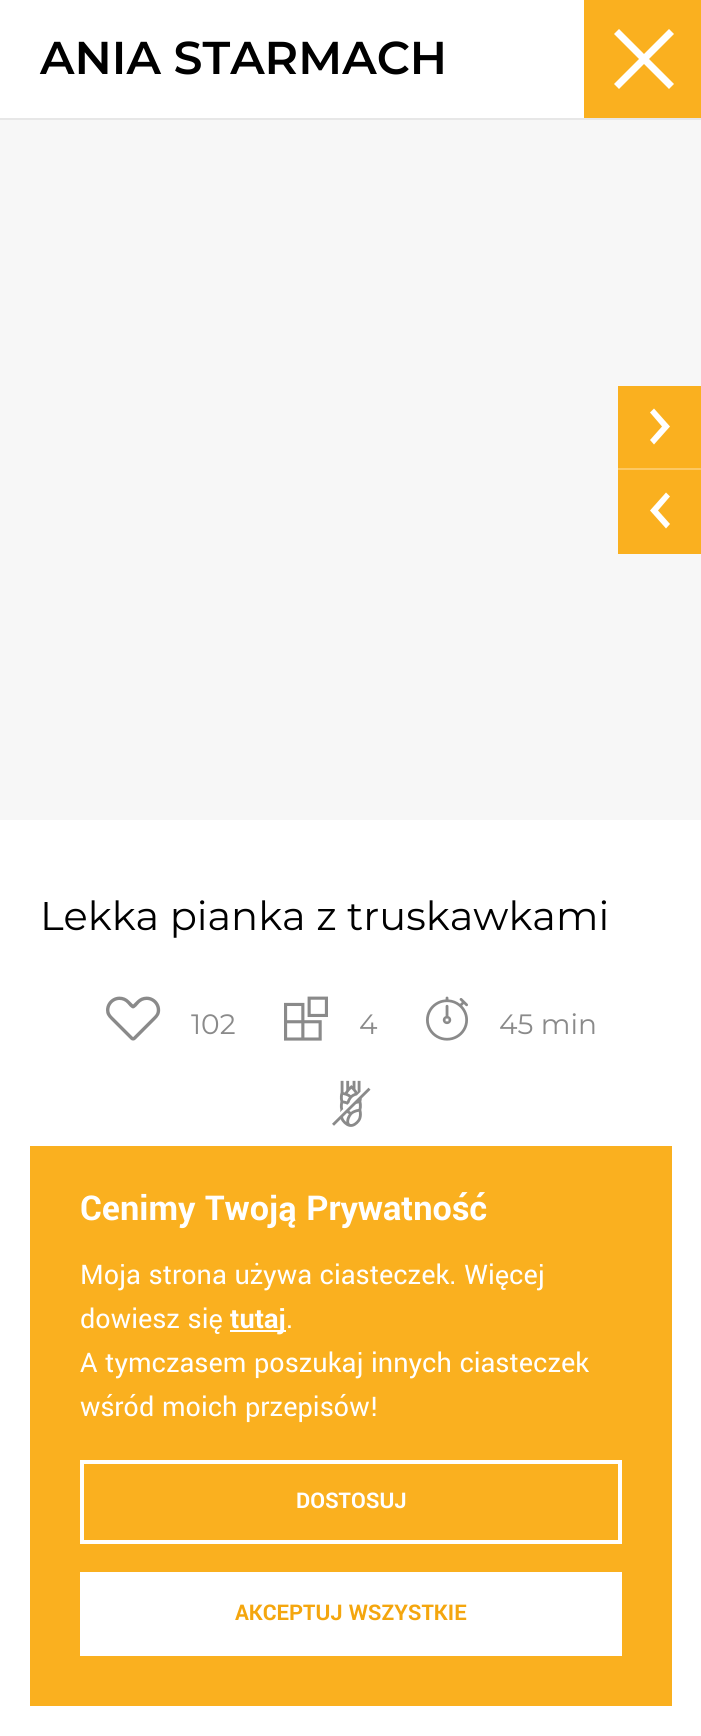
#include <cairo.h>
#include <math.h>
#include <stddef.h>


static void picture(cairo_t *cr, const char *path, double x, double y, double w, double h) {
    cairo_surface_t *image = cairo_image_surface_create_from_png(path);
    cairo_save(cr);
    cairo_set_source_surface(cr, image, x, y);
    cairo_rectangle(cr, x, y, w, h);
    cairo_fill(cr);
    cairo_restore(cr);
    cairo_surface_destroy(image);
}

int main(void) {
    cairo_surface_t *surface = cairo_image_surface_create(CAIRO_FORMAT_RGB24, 701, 1736);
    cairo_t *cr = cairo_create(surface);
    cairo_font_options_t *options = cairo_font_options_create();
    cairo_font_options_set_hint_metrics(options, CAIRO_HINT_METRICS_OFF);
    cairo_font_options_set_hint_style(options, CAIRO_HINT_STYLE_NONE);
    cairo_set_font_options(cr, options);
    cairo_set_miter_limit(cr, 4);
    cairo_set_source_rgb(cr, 1, 1, 1);
    cairo_paint(cr);
    cairo_set_source_rgb(cr, 0.906, 0.906, 0.906);
    cairo_rectangle(cr, 0, 118, 701, 2);
    cairo_fill(cr);
    cairo_select_font_face(cr, "Montserrat SemiBold", CAIRO_FONT_SLANT_NORMAL, CAIRO_FONT_WEIGHT_NORMAL);
    cairo_set_font_size(cr, 46);
    cairo_set_source_rgb(cr, 0, 0, 0);
    cairo_move_to(cr, 40, 74);
    cairo_show_text(cr, "ANIA STARMACH");
    cairo_set_source_rgb(cr, 0.98, 0.69, 0.122);
    cairo_rectangle(cr, 584, 0, 117, 118);
    cairo_fill(cr);
    cairo_set_source_rgb(cr, 1, 1, 1);
    cairo_new_path(cr);
    cairo_move_to(cr, 674, 84);
    cairo_line_to(cr, 669, 89);
    cairo_line_to(cr, 644, 64);
    cairo_line_to(cr, 619, 89);
    cairo_line_to(cr, 614, 84);
    cairo_line_to(cr, 639, 59);
    cairo_line_to(cr, 614, 34);
    cairo_line_to(cr, 619, 29);
    cairo_line_to(cr, 644, 54);
    cairo_line_to(cr, 669, 29);
    cairo_line_to(cr, 674, 34);
    cairo_line_to(cr, 649, 59);
    cairo_close_path(cr);
    cairo_fill(cr);
    cairo_set_source_rgb(cr, 0.965, 0.965, 0.965);
    cairo_rectangle(cr, 0, 120, 701, 700);
    cairo_fill(cr);
    cairo_set_source_rgb(cr, 0.98, 0.69, 0.122);
    cairo_rectangle(cr, 618, 386, 83, 82);
    cairo_fill(cr);
    cairo_set_source_rgb(cr, 0.988, 0.784, 0.388);
    cairo_rectangle(cr, 618, 468, 83, 2);
    cairo_fill(cr);
    cairo_set_source_rgb(cr, 1, 1, 1);
    cairo_new_path(cr);
    cairo_move_to(cr, 670, 426.5);
    cairo_line_to(cr, 654, 444.5);
    cairo_line_to(cr, 650, 440);
    cairo_line_to(cr, 662, 426.5);
    cairo_line_to(cr, 650, 412.5);
    cairo_line_to(cr, 654, 408.5);
    cairo_close_path(cr);
    cairo_fill(cr);
    cairo_set_source_rgb(cr, 0.98, 0.69, 0.122);
    cairo_rectangle(cr, 618, 470, 83, 84);
    cairo_fill(cr);
    cairo_set_source_rgb(cr, 1, 1, 1);
    cairo_new_path(cr);
    cairo_move_to(cr, 670, 524);
    cairo_line_to(cr, 666, 528.5);
    cairo_line_to(cr, 650, 510.5);
    cairo_line_to(cr, 666, 492.5);
    cairo_line_to(cr, 670, 496.5);
    cairo_line_to(cr, 658, 510.5);
    cairo_close_path(cr);
    cairo_fill(cr);
    cairo_select_font_face(cr, "Montserrat", CAIRO_FONT_SLANT_NORMAL, CAIRO_FONT_WEIGHT_NORMAL);
    cairo_set_font_size(cr, 40);
    cairo_set_source_rgb(cr, 0, 0, 0);
    cairo_move_to(cr, 40, 930);
    cairo_show_text(cr, "Lekka pianka z truskawkami");
    picture(cr, "img1.png", 106, 996, 55, 45);
    cairo_set_font_size(cr, 28);
    cairo_set_source_rgb(cr, 0.541, 0.541, 0.541);
    cairo_move_to(cr, 191, 1034);
    cairo_show_text(cr, "102");
    picture(cr, "img2.png", 284, 996, 44, 45);
    cairo_move_to(cr, 359, 1034);
    cairo_show_text(cr, "4");
    picture(cr, "img3.png", 426, 996, 42, 45);
    cairo_move_to(cr, 499, 1034);
    cairo_show_text(cr, "45 min");
    picture(cr, "img4.png", 332, 1080, 39, 47);
    cairo_set_source_rgb(cr, 0.98, 0.69, 0.122);
    cairo_rectangle(cr, 30, 1146, 642, 560);
    cairo_fill(cr);
    cairo_select_font_face(cr, "Yantramanav", CAIRO_FONT_SLANT_NORMAL, CAIRO_FONT_WEIGHT_BOLD);
    cairo_set_font_size(cr, 38);
    cairo_set_source_rgb(cr, 1, 1, 1);
    cairo_move_to(cr, 80, 1220);
    cairo_show_text(cr, "Cenimy Twoją Prywatność");
    cairo_select_font_face(cr, "Yantramanav", CAIRO_FONT_SLANT_NORMAL, CAIRO_FONT_WEIGHT_NORMAL);
    cairo_set_font_size(cr, 30);
    cairo_move_to(cr, 80, 1284);
    cairo_show_text(cr, "Moja strona używa ciasteczek. Więcej");
    cairo_move_to(cr, 80, 1328);
    cairo_show_text(cr, "dowiesz się");
    cairo_rectangle(cr, 230, 1330, 56, 2);
    cairo_fill(cr);
    cairo_select_font_face(cr, "Yantramanav", CAIRO_FONT_SLANT_NORMAL, CAIRO_FONT_WEIGHT_BOLD);
    cairo_move_to(cr, 230, 1328);
    cairo_show_text(cr, "tutaj");
    cairo_select_font_face(cr, "Yantramanav", CAIRO_FONT_SLANT_NORMAL, CAIRO_FONT_WEIGHT_NORMAL);
    cairo_move_to(cr, 286, 1328);
    cairo_show_text(cr, ".");
    cairo_move_to(cr, 80, 1372);
    cairo_show_text(cr, "A tymczasem poszukaj innych ciasteczek");
    cairo_move_to(cr, 80, 1416);
    cairo_show_text(cr, "wśród moich przepisów!");
    cairo_rectangle(cr, 82, 1462, 538, 80);
    cairo_set_line_width(cr, 4);
    cairo_stroke(cr);
    cairo_select_font_face(cr, "Yantramanav", CAIRO_FONT_SLANT_NORMAL, CAIRO_FONT_WEIGHT_BOLD);
    cairo_set_font_size(cr, 24);
    cairo_move_to(cr, 296, 1508);
    cairo_show_text(cr, "DOSTOSUJ");
    cairo_rectangle(cr, 80, 1572, 542, 84);
    cairo_fill(cr);
    cairo_set_source_rgb(cr, 0.957, 0.651, 0.055);
    cairo_move_to(cr, 235, 1620);
    cairo_show_text(cr, "AKCEPTUJ WSZYSTKIE");
    cairo_surface_write_to_png(surface, "page.png");
    cairo_font_options_destroy(options);
    cairo_destroy(cr);
    cairo_surface_destroy(surface);
    return 0;
}
